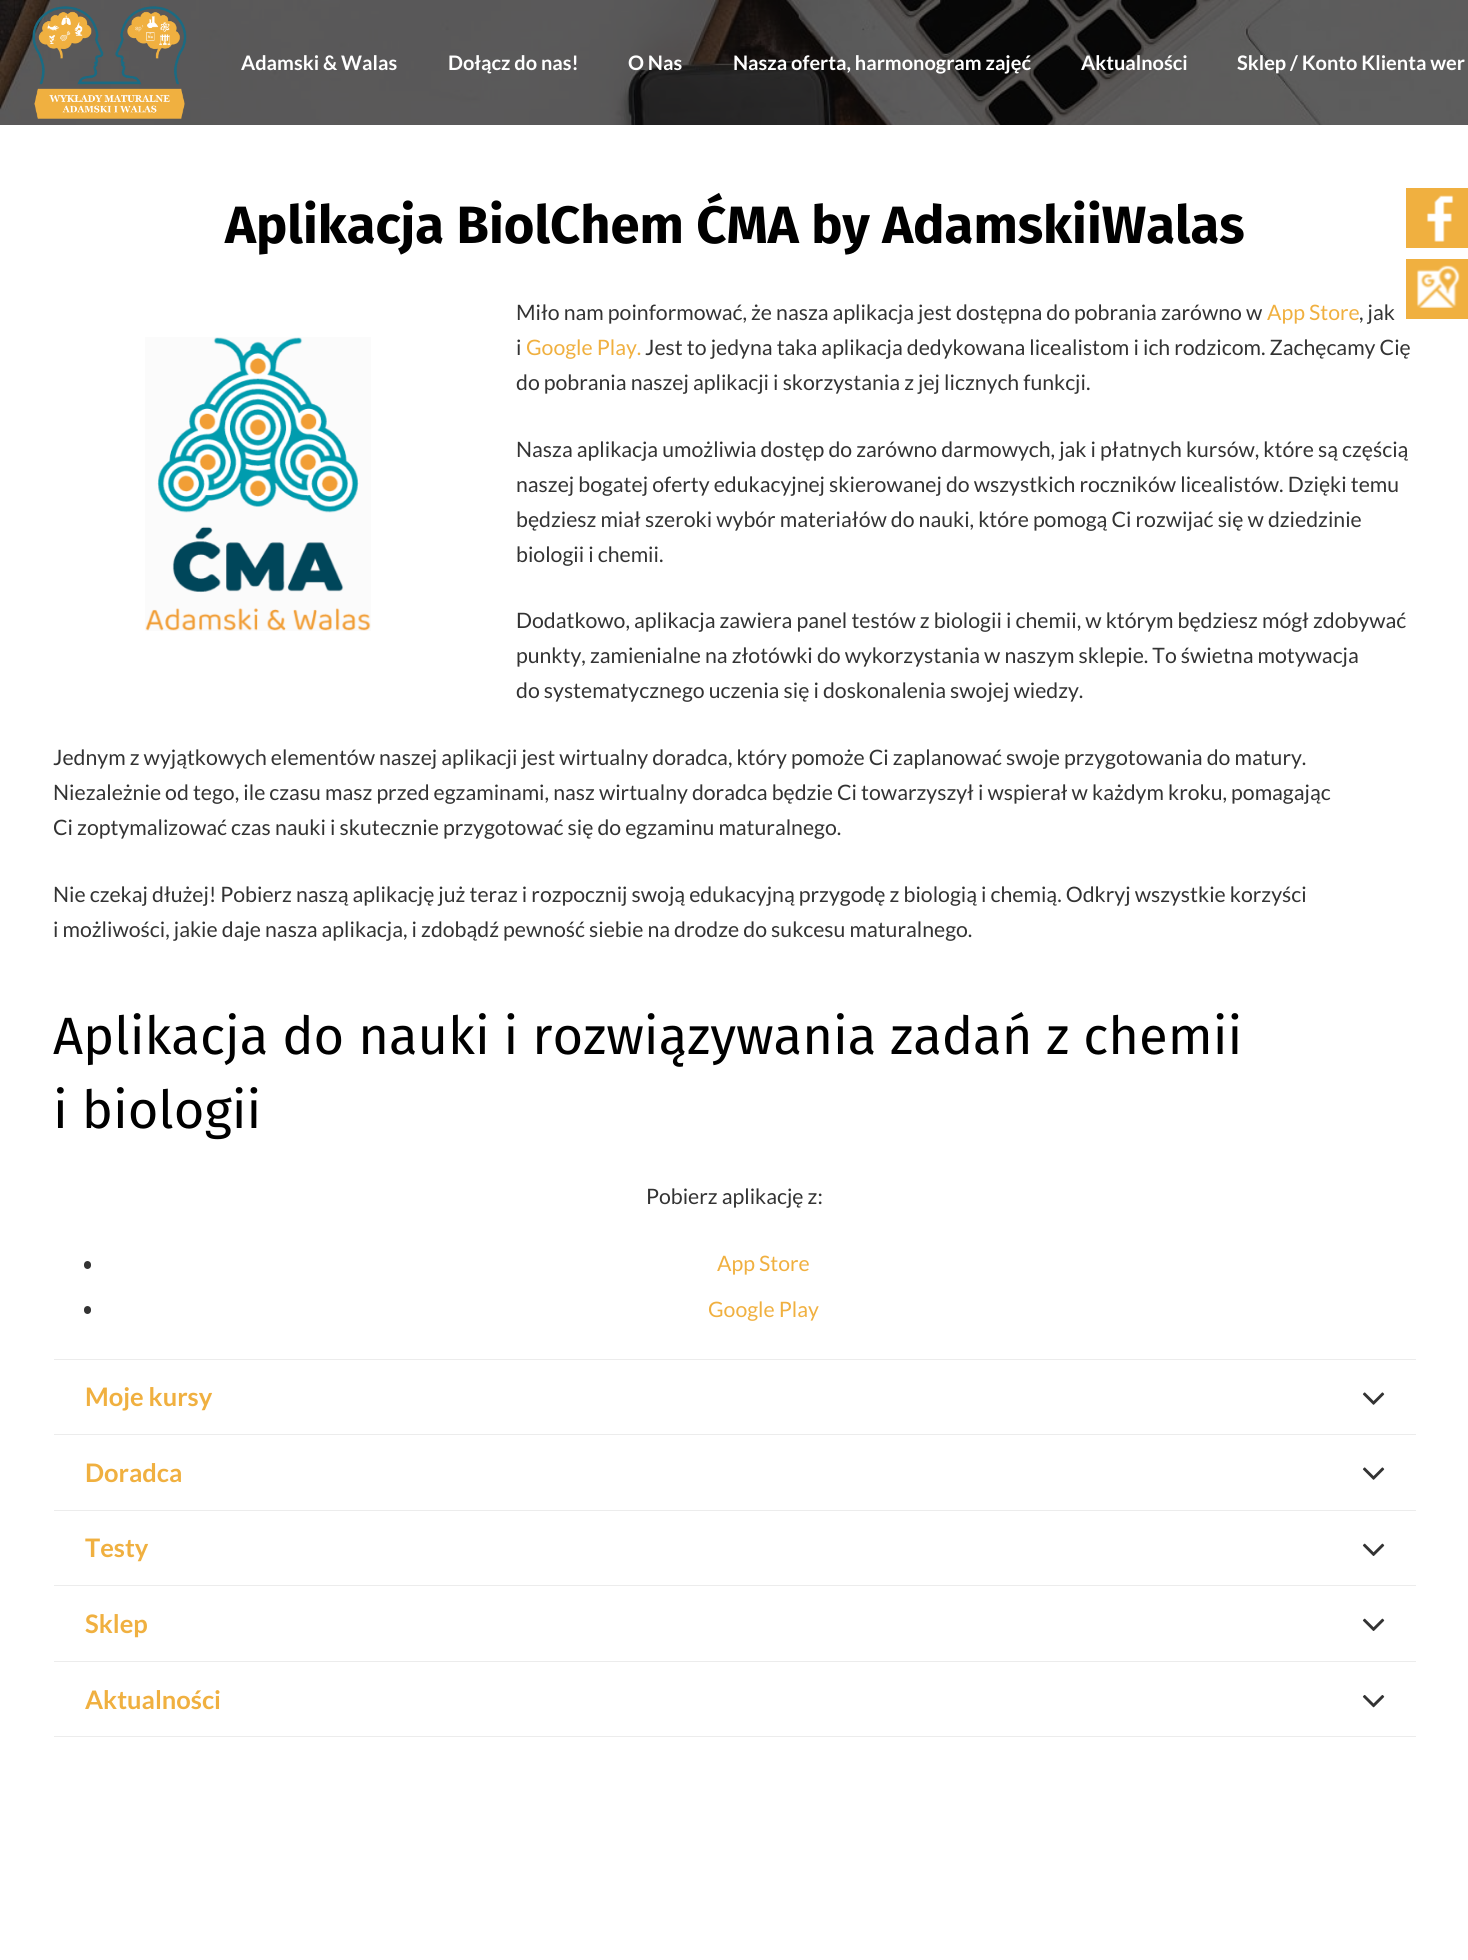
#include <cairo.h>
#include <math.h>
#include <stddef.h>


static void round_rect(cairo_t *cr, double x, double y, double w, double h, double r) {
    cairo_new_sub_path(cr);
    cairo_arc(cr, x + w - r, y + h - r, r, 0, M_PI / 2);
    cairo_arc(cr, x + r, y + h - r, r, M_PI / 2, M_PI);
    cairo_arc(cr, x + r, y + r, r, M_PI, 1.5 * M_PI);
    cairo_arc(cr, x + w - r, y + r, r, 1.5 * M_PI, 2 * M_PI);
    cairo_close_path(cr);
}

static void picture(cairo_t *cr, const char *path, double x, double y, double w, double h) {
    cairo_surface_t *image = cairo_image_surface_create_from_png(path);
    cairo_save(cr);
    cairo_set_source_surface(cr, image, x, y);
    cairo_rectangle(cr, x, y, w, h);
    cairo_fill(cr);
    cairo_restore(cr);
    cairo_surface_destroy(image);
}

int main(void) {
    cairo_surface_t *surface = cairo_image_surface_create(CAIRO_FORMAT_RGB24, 1468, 1960);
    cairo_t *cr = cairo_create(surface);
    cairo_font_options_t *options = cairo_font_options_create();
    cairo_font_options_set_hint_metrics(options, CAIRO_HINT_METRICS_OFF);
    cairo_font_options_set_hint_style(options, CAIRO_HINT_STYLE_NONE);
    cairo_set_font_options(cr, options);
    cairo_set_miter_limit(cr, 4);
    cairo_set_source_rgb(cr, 1, 1, 1);
    cairo_paint(cr);
    picture(cr, "img2.png", 0, 0, 1468, 125);
    picture(cr, "img1.png", 32, 6, 155, 113);
    cairo_select_font_face(cr, "Lato", CAIRO_FONT_SLANT_NORMAL, CAIRO_FONT_WEIGHT_BOLD);
    cairo_set_font_size(cr, 20);
    cairo_set_source_rgb(cr, 1, 1, 1);
    cairo_move_to(cr, 241, 70);
    cairo_show_text(cr, "Adamski & Walas");
    cairo_move_to(cr, 448, 70);
    cairo_show_text(cr, "Dołącz do nas!");
    cairo_move_to(cr, 628, 70);
    cairo_show_text(cr, "O Nas");
    cairo_move_to(cr, 733, 70);
    cairo_show_text(cr, "Nasza oferta, harmonogram zajęć");
    cairo_move_to(cr, 1081, 70);
    cairo_show_text(cr, "Aktualności");
    cairo_move_to(cr, 1237, 70);
    cairo_show_text(cr, "Sklep / Konto Klienta wer");
    cairo_select_font_face(cr, "Fira Sans", CAIRO_FONT_SLANT_NORMAL, CAIRO_FONT_WEIGHT_BOLD);
    cairo_set_font_size(cr, 52.5);
    cairo_set_source_rgb(cr, 0, 0, 0);
    cairo_move_to(cr, 225, 243);
    cairo_show_text(cr, "Aplikacja BiolChem ĆMA by AdamskiiWalas");
    picture(cr, "img3.png", 145, 337, 226, 294);
    cairo_select_font_face(cr, "Lato", CAIRO_FONT_SLANT_NORMAL, CAIRO_FONT_WEIGHT_NORMAL);
    cairo_set_font_size(cr, 21.25);
    cairo_set_source_rgb(cr, 0.2, 0.2, 0.2);
    cairo_move_to(cr, 516, 320);
    cairo_show_text(cr, "Miło nam poinformować, że nasza aplikacja jest dostępna do pobrania zarówno w");
    cairo_set_source_rgb(cr, 0.941, 0.69, 0.251);
    cairo_move_to(cr, 1267, 320);
    cairo_show_text(cr, "App Store");
    cairo_set_source_rgb(cr, 0.2, 0.2, 0.2);
    cairo_move_to(cr, 1359, 320);
    cairo_show_text(cr, ", jak");
    cairo_move_to(cr, 516, 355);
    cairo_show_text(cr, "i");
    cairo_set_source_rgb(cr, 0.941, 0.69, 0.251);
    cairo_move_to(cr, 526, 355);
    cairo_show_text(cr, "Google Play.");
    cairo_set_source_rgb(cr, 0.2, 0.2, 0.2);
    cairo_move_to(cr, 645, 355);
    cairo_show_text(cr, "Jest to jedyna taka aplikacja dedykowana licealistom i ich rodzicom. Zachęcamy Cię");
    cairo_move_to(cr, 516, 390);
    cairo_show_text(cr, "do pobrania naszej aplikacji i skorzystania z jej licznych funkcji.");
    cairo_move_to(cr, 516, 457);
    cairo_show_text(cr, "Nasza aplikacja umożliwia dostęp do zarówno darmowych, jak i płatnych kursów, które są częścią");
    cairo_move_to(cr, 516, 492);
    cairo_show_text(cr, "naszej bogatej oferty edukacyjnej skierowanej do wszystkich roczników licealistów. Dzięki temu");
    cairo_move_to(cr, 516, 527);
    cairo_show_text(cr, "będziesz miał szeroki wybór materiałów do nauki, które pomogą Ci rozwijać się w dziedzinie");
    cairo_move_to(cr, 516, 562);
    cairo_show_text(cr, "biologii i chemii.");
    cairo_move_to(cr, 516, 628);
    cairo_show_text(cr, "Dodatkowo, aplikacja zawiera panel testów z biologii i chemii, w którym będziesz mógł zdobywać");
    cairo_move_to(cr, 516, 663);
    cairo_show_text(cr, "punkty, zamienialne na złotówki do wykorzystania w naszym sklepie. To świetna motywacja");
    cairo_move_to(cr, 516, 698);
    cairo_show_text(cr, "do systematycznego uczenia się i doskonalenia swojej wiedzy.");
    cairo_move_to(cr, 53, 765);
    cairo_show_text(cr, "Jednym z wyjątkowych elementów naszej aplikacji jest wirtualny doradca, który pomoże Ci zaplanować swoje przygotowania do matury.");
    cairo_move_to(cr, 53, 800);
    cairo_show_text(cr, "Niezależnie od tego, ile czasu masz przed egzaminami, nasz wirtualny doradca będzie Ci towarzyszył i wspierał w każdym kroku, pomagając");
    cairo_move_to(cr, 53, 835);
    cairo_show_text(cr, "Ci zoptymalizować czas nauki i skutecznie przygotować się do egzaminu maturalnego.");
    cairo_move_to(cr, 53, 902);
    cairo_show_text(cr, "Nie czekaj dłużej! Pobierz naszą aplikację już teraz i rozpocznij swoją edukacyjną przygodę z biologią i chemią. Odkryj wszystkie korzyści");
    cairo_move_to(cr, 53, 937);
    cairo_show_text(cr, "i możliwości, jakie daje nasza aplikacja, i zdobądź pewność siebie na drodze do sukcesu maturalnego.");
    cairo_select_font_face(cr, "Fira Sans", CAIRO_FONT_SLANT_NORMAL, CAIRO_FONT_WEIGHT_NORMAL);
    cairo_set_font_size(cr, 52.5);
    cairo_set_source_rgb(cr, 0, 0, 0);
    cairo_move_to(cr, 53, 1054);
    cairo_show_text(cr, "Aplikacja do nauki i rozwiązywania zadań z chemii");
    cairo_move_to(cr, 53, 1128);
    cairo_show_text(cr, "i biologii");
    cairo_select_font_face(cr, "Lato", CAIRO_FONT_SLANT_NORMAL, CAIRO_FONT_WEIGHT_NORMAL);
    cairo_set_font_size(cr, 21.25);
    cairo_set_source_rgb(cr, 0.2, 0.2, 0.2);
    cairo_move_to(cr, 646, 1204);
    cairo_show_text(cr, "Pobierz aplikację z:");
    round_rect(cr, 84, 1261, 7, 8, 3.5);
    cairo_fill(cr);
    cairo_set_source_rgb(cr, 0.941, 0.69, 0.251);
    cairo_move_to(cr, 717, 1271);
    cairo_show_text(cr, "App Store");
    cairo_set_source_rgb(cr, 0.2, 0.2, 0.2);
    round_rect(cr, 84, 1306, 7, 8, 3.5);
    cairo_fill(cr);
    cairo_set_source_rgb(cr, 0.941, 0.69, 0.251);
    cairo_move_to(cr, 708, 1317);
    cairo_show_text(cr, "Google Play");
    cairo_set_source_rgb(cr, 0.922, 0.922, 0.922);
    cairo_rectangle(cr, 54, 1359, 1362, 1);
    cairo_fill(cr);
    cairo_select_font_face(cr, "Lato", CAIRO_FONT_SLANT_NORMAL, CAIRO_FONT_WEIGHT_BOLD);
    cairo_set_font_size(cr, 25.5);
    cairo_set_source_rgb(cr, 0.941, 0.69, 0.251);
    cairo_move_to(cr, 85, 1406);
    cairo_show_text(cr, "Moje kursy");
    picture(cr, "img4.png", 1362, 1392, 23, 13);
    cairo_set_source_rgb(cr, 0.922, 0.922, 0.922);
    cairo_rectangle(cr, 54, 1434, 1362, 1);
    cairo_fill(cr);
    cairo_set_source_rgb(cr, 0.941, 0.69, 0.251);
    cairo_move_to(cr, 85, 1482);
    cairo_show_text(cr, "Doradca");
    picture(cr, "img4.png", 1362, 1467, 23, 13);
    cairo_set_source_rgb(cr, 0.922, 0.922, 0.922);
    cairo_rectangle(cr, 54, 1510, 1362, 1);
    cairo_fill(cr);
    cairo_set_source_rgb(cr, 0.941, 0.69, 0.251);
    cairo_move_to(cr, 85, 1557);
    cairo_show_text(cr, "Testy");
    picture(cr, "img5.png", 1362, 1543, 23, 13);
    cairo_set_source_rgb(cr, 0.922, 0.922, 0.922);
    cairo_rectangle(cr, 54, 1585, 1362, 1);
    cairo_fill(cr);
    cairo_set_source_rgb(cr, 0.941, 0.69, 0.251);
    cairo_move_to(cr, 85, 1633);
    cairo_show_text(cr, "Sklep");
    picture(cr, "img5.png", 1362, 1618, 23, 13);
    cairo_set_source_rgb(cr, 0.922, 0.922, 0.922);
    cairo_rectangle(cr, 54, 1661, 1362, 1);
    cairo_fill(cr);
    cairo_rectangle(cr, 54, 1736, 1362, 1);
    cairo_fill(cr);
    cairo_set_source_rgb(cr, 0.941, 0.69, 0.251);
    cairo_move_to(cr, 85, 1709);
    cairo_show_text(cr, "Aktualności");
    picture(cr, "img6.png", 1362, 1695, 23, 13);
    cairo_rectangle(cr, 1406, 188, 62, 60);
    cairo_fill(cr);
    picture(cr, "img7.png", 1426, 195, 28, 47);
    cairo_rectangle(cr, 1406, 259, 62, 60);
    cairo_fill(cr);
    picture(cr, "img8.png", 1416, 265, 44, 43);
    cairo_surface_write_to_png(surface, "page.png");
    cairo_font_options_destroy(options);
    cairo_destroy(cr);
    cairo_surface_destroy(surface);
    return 0;
}
